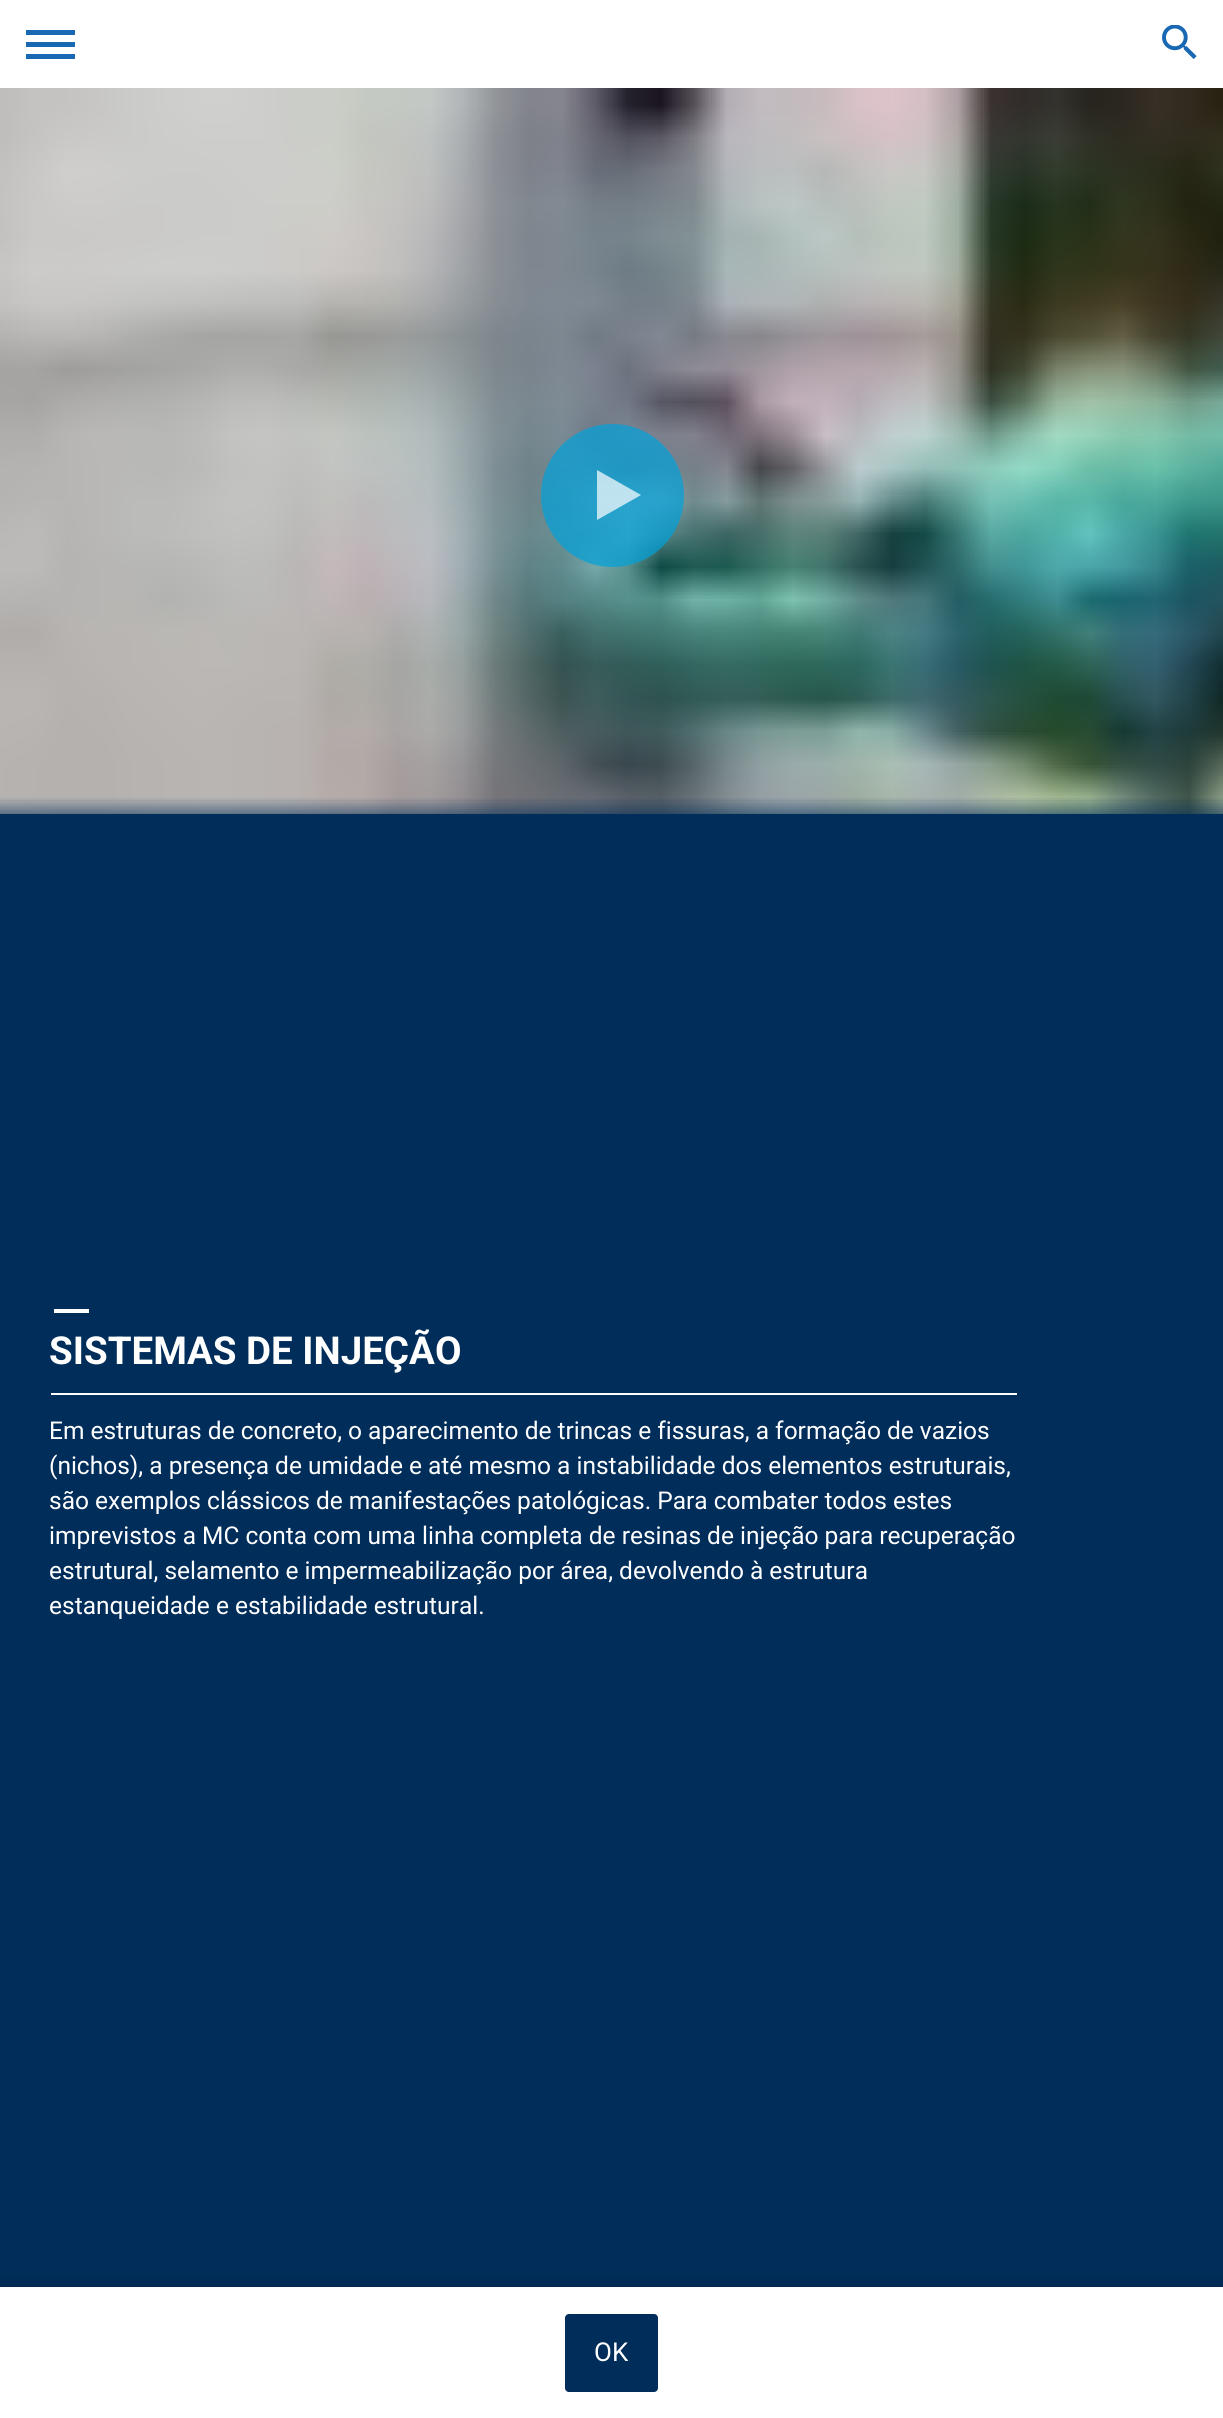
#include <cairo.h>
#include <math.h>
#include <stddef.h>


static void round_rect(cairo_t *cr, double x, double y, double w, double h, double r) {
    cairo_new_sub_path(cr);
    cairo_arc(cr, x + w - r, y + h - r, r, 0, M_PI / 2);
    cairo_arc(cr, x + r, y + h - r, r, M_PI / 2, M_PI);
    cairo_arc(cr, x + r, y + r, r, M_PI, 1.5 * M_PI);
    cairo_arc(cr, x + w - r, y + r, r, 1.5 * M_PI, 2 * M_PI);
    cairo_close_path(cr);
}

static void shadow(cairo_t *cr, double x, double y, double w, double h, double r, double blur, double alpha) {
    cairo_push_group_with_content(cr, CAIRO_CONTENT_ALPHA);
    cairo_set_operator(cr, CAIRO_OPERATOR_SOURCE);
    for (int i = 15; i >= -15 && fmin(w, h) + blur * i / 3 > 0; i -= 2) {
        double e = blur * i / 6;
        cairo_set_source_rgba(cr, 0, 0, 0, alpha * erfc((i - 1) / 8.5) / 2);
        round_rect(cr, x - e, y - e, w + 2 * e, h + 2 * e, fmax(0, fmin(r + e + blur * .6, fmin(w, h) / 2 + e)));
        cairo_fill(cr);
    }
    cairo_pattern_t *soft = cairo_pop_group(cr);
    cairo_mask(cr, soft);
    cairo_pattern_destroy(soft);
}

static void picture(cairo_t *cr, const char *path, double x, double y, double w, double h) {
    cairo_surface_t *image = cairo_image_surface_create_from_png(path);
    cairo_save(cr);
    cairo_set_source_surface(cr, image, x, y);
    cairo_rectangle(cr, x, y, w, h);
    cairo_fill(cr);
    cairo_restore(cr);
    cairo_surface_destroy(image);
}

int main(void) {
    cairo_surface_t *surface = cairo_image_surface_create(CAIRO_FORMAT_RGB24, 1223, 2418);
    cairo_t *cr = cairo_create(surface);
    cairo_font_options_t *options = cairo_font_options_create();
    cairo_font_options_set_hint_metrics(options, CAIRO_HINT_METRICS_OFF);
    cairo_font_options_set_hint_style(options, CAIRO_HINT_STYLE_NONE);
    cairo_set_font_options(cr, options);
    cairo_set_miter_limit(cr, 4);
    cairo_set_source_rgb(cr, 0, 0.176, 0.353);
    cairo_paint(cr);
    cairo_set_source_rgb(cr, 1, 1, 1);
    cairo_rectangle(cr, 0, 0, 1223, 88);
    cairo_fill(cr);
    cairo_set_source_rgb(cr, 0.098, 0.408, 0.702);
    cairo_rectangle(cr, 26, 30, 49, 5);
    cairo_fill(cr);
    cairo_rectangle(cr, 26, 42, 49, 5);
    cairo_fill(cr);
    cairo_rectangle(cr, 26, 54, 49, 5);
    cairo_fill(cr);
    picture(cr, "img1.png", 1162, 25, 35, 34);
    picture(cr, "img2.png", 0, 88, 1223, 726);
    cairo_set_source_rgba(cr, 0, 0.635, 0.859, 0.7);
    cairo_arc(cr, 612.5, 495.5, 71.5, 0, 2 * M_PI);
    cairo_fill(cr);
    cairo_set_source_rgba(cr, 1, 1, 1, 0.7);
    cairo_new_path(cr);
    cairo_move_to(cr, 641, 495);
    cairo_line_to(cr, 597, 520);
    cairo_line_to(cr, 597, 470);
    cairo_close_path(cr);
    cairo_fill(cr);
    cairo_set_source_rgb(cr, 1, 1, 1);
    cairo_rectangle(cr, 54, 1309, 35, 4);
    cairo_fill(cr);
    cairo_select_font_face(cr, "Roboto", CAIRO_FONT_SLANT_NORMAL, CAIRO_FONT_WEIGHT_BOLD);
    cairo_set_font_size(cr, 38.5);
    cairo_move_to(cr, 49, 1364);
    cairo_show_text(cr, "SISTEMAS DE INJEÇÃO");
    cairo_rectangle(cr, 51, 1393, 966, 2);
    cairo_fill(cr);
    cairo_select_font_face(cr, "Roboto", CAIRO_FONT_SLANT_NORMAL, CAIRO_FONT_WEIGHT_NORMAL);
    cairo_set_font_size(cr, 24.5);
    cairo_move_to(cr, 49, 1439);
    cairo_show_text(cr, "Em estruturas de concreto, o aparecimento de trincas e fissuras, a formação de vazios");
    cairo_move_to(cr, 49, 1474);
    cairo_show_text(cr, "(nichos), a presença de umidade e até mesmo a instabilidade dos elementos estruturais,");
    cairo_move_to(cr, 49, 1509);
    cairo_show_text(cr, "são exemplos clássicos de manifestações patológicas. Para combater todos estes");
    cairo_move_to(cr, 49, 1544);
    cairo_show_text(cr, "imprevistos a MC conta com uma linha completa de resinas de injeção para recuperação");
    cairo_move_to(cr, 49, 1579);
    cairo_show_text(cr, "estrutural, selamento e impermeabilização por área, devolvendo à estrutura");
    cairo_move_to(cr, 49, 1614);
    cairo_show_text(cr, "estanqueidade e estabilidade estrutural.");
    cairo_set_source_rgb(cr, 0, 0, 0);
    shadow(cr, 0, 2289, 1223, 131, 0, 9, 0.2);
    cairo_set_source_rgb(cr, 1, 1, 1);
    cairo_rectangle(cr, 0, 2287, 1223, 131);
    cairo_fill(cr);
    cairo_set_source_rgb(cr, 0, 0.176, 0.353);
    round_rect(cr, 565, 2314, 93, 78, 4);
    cairo_fill(cr);
    cairo_set_font_size(cr, 26);
    cairo_set_source_rgb(cr, 1, 1, 1);
    cairo_move_to(cr, 594, 2361);
    cairo_show_text(cr, "OK");
    cairo_surface_write_to_png(surface, "page.png");
    cairo_font_options_destroy(options);
    cairo_destroy(cr);
    cairo_surface_destroy(surface);
    return 0;
}
